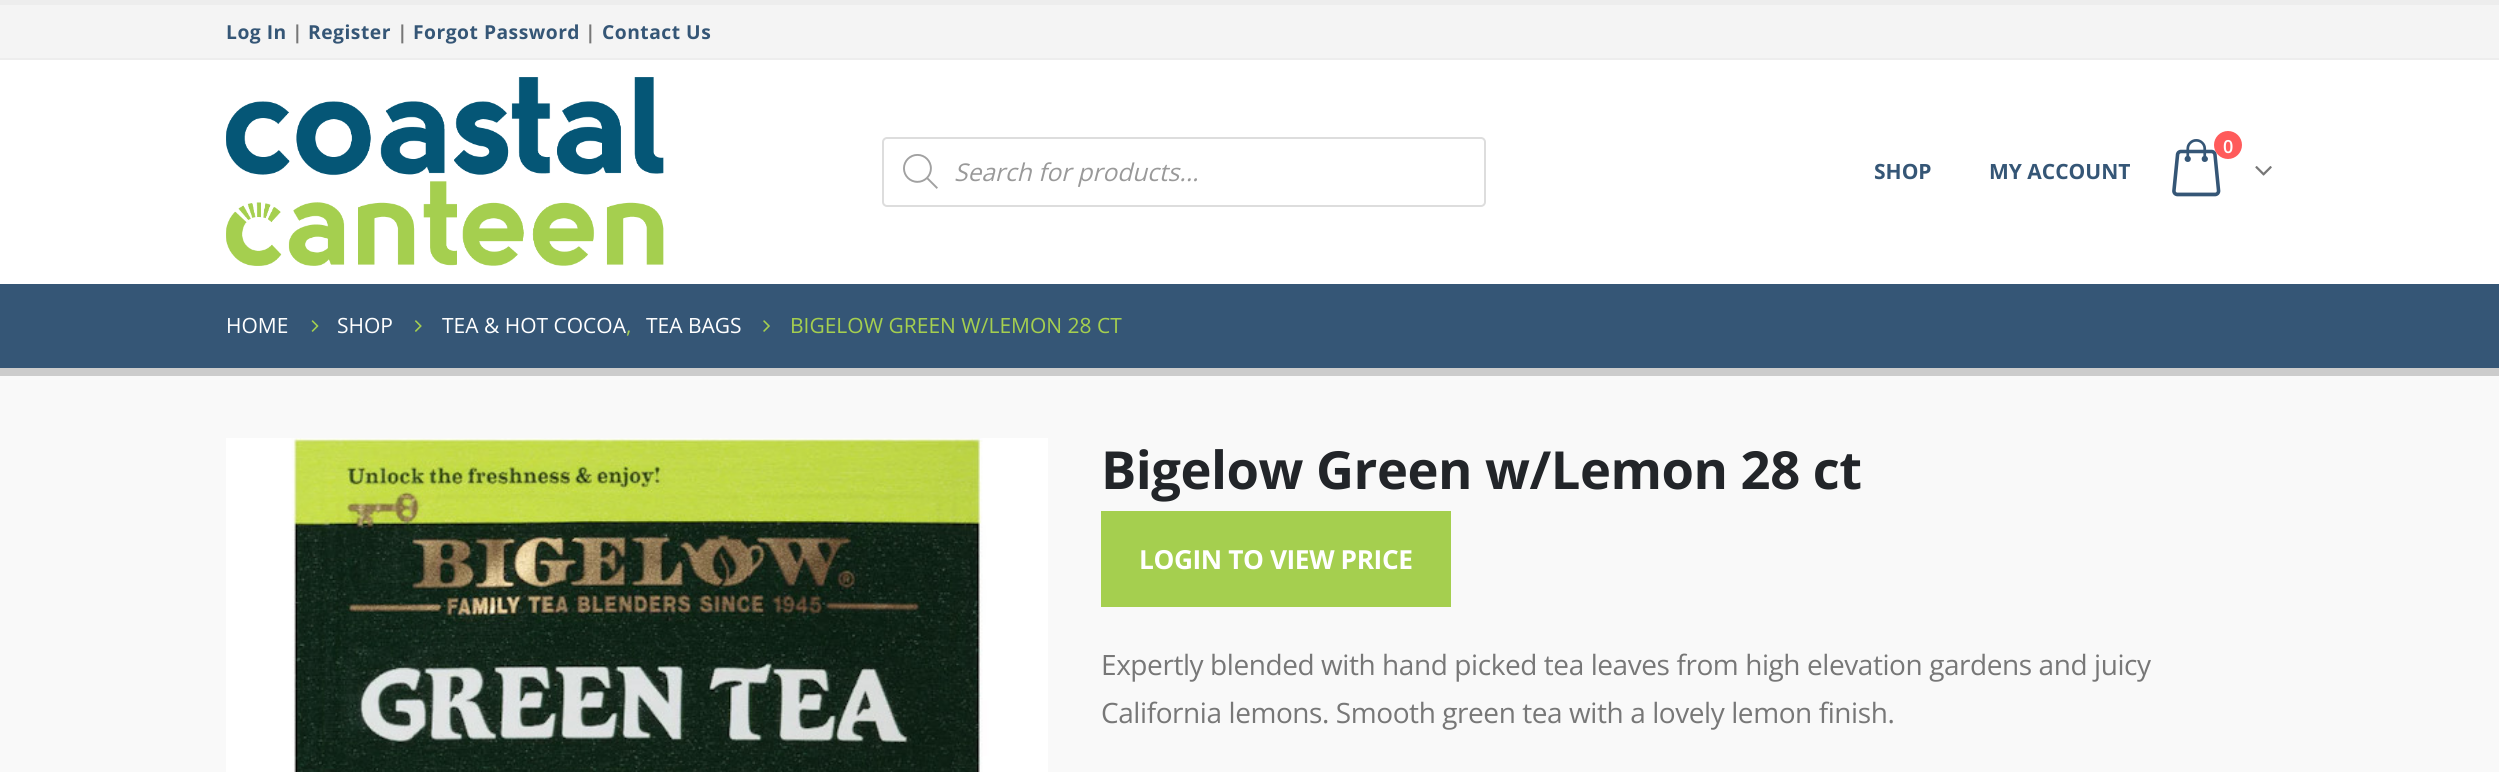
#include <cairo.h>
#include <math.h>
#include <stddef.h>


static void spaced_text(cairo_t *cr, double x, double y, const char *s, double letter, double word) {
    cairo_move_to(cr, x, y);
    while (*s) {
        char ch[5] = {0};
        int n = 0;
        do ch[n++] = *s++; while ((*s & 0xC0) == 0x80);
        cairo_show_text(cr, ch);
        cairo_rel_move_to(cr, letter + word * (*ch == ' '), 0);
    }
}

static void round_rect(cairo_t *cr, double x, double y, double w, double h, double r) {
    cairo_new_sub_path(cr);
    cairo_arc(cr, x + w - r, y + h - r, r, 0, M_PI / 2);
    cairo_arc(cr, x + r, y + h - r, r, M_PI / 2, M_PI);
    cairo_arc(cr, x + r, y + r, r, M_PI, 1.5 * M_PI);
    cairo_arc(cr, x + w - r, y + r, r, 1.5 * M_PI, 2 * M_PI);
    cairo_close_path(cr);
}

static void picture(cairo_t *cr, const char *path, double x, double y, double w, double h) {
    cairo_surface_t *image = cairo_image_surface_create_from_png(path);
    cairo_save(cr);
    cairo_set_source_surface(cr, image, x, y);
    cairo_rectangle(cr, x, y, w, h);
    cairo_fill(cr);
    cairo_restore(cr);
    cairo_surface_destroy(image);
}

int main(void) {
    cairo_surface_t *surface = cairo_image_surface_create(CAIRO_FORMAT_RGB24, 2499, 772);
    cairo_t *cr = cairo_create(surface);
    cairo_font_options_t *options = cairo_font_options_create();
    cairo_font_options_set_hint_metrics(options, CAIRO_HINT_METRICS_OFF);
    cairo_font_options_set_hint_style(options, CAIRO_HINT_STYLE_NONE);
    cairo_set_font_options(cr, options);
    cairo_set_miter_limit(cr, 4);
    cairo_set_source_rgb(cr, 1, 1, 1);
    cairo_paint(cr);
    cairo_set_source_rgb(cr, 0.929, 0.929, 0.929);
    cairo_rectangle(cr, 0, 0, 2499, 5);
    cairo_fill(cr);
    cairo_set_source_rgb(cr, 0.957, 0.957, 0.957);
    cairo_rectangle(cr, 0, 5, 2499, 53);
    cairo_fill(cr);
    cairo_set_source_rgb(cr, 0.929, 0.929, 0.929);
    cairo_rectangle(cr, 0, 58, 2499, 2);
    cairo_fill(cr);
    cairo_select_font_face(cr, "Open Sans", CAIRO_FONT_SLANT_NORMAL, CAIRO_FONT_WEIGHT_BOLD);
    cairo_set_font_size(cr, 19.25);
    cairo_set_source_rgb(cr, 0.208, 0.337, 0.463);
    spaced_text(cr, 226, 39, "Log In", 0.5, 0);
    cairo_set_source_rgb(cr, 0.467, 0.467, 0.467);
    spaced_text(cr, 292, 39, "|", 0.5, 0);
    cairo_set_source_rgb(cr, 0.208, 0.337, 0.463);
    spaced_text(cr, 308, 39, "Register", 0.5, 0);
    cairo_set_source_rgb(cr, 0.467, 0.467, 0.467);
    spaced_text(cr, 397, 39, "|", 0.5, 0);
    cairo_set_source_rgb(cr, 0.208, 0.337, 0.463);
    spaced_text(cr, 413, 39, "Forgot Password", 0.5, 0);
    cairo_set_source_rgb(cr, 0.467, 0.467, 0.467);
    spaced_text(cr, 585, 39, "|", 0.5, 0);
    cairo_set_source_rgb(cr, 0.208, 0.337, 0.463);
    spaced_text(cr, 602, 39, "Contact Us", 0.5, 0);
    picture(cr, "img1.png", 226, 77, 438, 189);
    round_rect(cr, 883, 138, 602, 68, 4);
    cairo_set_source_rgb(cr, 0.867, 0.867, 0.867);
    cairo_stroke(cr);
    picture(cr, "img2.png", 903, 154, 35, 35);
    cairo_select_font_face(cr, "Open Sans", CAIRO_FONT_SLANT_ITALIC, CAIRO_FONT_WEIGHT_NORMAL);
    cairo_set_font_size(cr, 24.5);
    cairo_set_source_rgb(cr, 0.6, 0.6, 0.6);
    cairo_move_to(cr, 954, 181);
    cairo_show_text(cr, "Search for products...");
    picture(cr, "img3.png", 2172, 139, 49, 58);
    cairo_set_source_rgb(cr, 1, 0.357, 0.357);
    cairo_arc(cr, 2228, 145, 14, 0, 2 * M_PI);
    cairo_fill(cr);
    cairo_select_font_face(cr, "Open Sans SemiBold", CAIRO_FONT_SLANT_NORMAL, CAIRO_FONT_WEIGHT_NORMAL);
    cairo_set_font_size(cr, 18);
    cairo_set_source_rgb(cr, 1, 1, 1);
    cairo_move_to(cr, 2223, 153);
    cairo_show_text(cr, "0");
    picture(cr, "img4.png", 2255, 166, 17, 10);
    cairo_select_font_face(cr, "Open Sans", CAIRO_FONT_SLANT_NORMAL, CAIRO_FONT_WEIGHT_BOLD);
    cairo_set_font_size(cr, 21);
    cairo_set_source_rgb(cr, 0.208, 0.337, 0.463);
    cairo_move_to(cr, 1874, 179);
    cairo_show_text(cr, "SHOP");
    cairo_move_to(cr, 1989, 179);
    cairo_show_text(cr, "MY ACCOUNT");
    cairo_rectangle(cr, 0, 284, 2499, 84);
    cairo_fill(cr);
    cairo_set_source_rgb(cr, 0.8, 0.8, 0.8);
    cairo_rectangle(cr, 0, 368, 2499, 8);
    cairo_fill(cr);
    cairo_select_font_face(cr, "Open Sans", CAIRO_FONT_SLANT_NORMAL, CAIRO_FONT_WEIGHT_NORMAL);
    cairo_set_source_rgb(cr, 1, 1, 1);
    cairo_move_to(cr, 226, 333);
    cairo_show_text(cr, "HOME");
    picture(cr, "img5.png", 311, 320, 8, 12);
    cairo_move_to(cr, 337, 333);
    cairo_show_text(cr, "SHOP");
    picture(cr, "img6.png", 415, 320, 7, 12);
    cairo_move_to(cr, 442, 333);
    cairo_show_text(cr, "TEA & HOT COCOA");
    cairo_move_to(cr, 646, 333);
    cairo_show_text(cr, "TEA BAGS");
    picture(cr, "img7.png", 763, 320, 7, 12);
    cairo_set_source_rgb(cr, 0.647, 0.812, 0.31);
    cairo_move_to(cr, 626, 333);
    cairo_show_text(cr, ",");
    cairo_move_to(cr, 790, 333);
    cairo_show_text(cr, "BIGELOW GREEN W/LEMON 28 CT");
    cairo_set_source_rgb(cr, 0.976, 0.976, 0.976);
    cairo_rectangle(cr, 0, 376, 2499, 396);
    cairo_fill(cr);
    picture(cr, "img8.png", 226, 438, 822, 334);
    cairo_select_font_face(cr, "Open Sans", CAIRO_FONT_SLANT_NORMAL, CAIRO_FONT_WEIGHT_BOLD);
    cairo_set_font_size(cr, 52.5);
    cairo_set_source_rgb(cr, 0.133, 0.145, 0.161);
    spaced_text(cr, 1101, 489, "Bigelow Green w/Lemon 28 ct", -0.5, 0);
    cairo_set_source_rgb(cr, 0.647, 0.812, 0.31);
    cairo_rectangle(cr, 1101, 511, 350, 96);
    cairo_fill(cr);
    cairo_set_font_size(cr, 26.25);
    cairo_set_source_rgb(cr, 1, 1, 1);
    spaced_text(cr, 1139, 569, "LOGIN TO VIEW PRICE", -0.4, 0);
    cairo_select_font_face(cr, "Open Sans", CAIRO_FONT_SLANT_NORMAL, CAIRO_FONT_WEIGHT_NORMAL);
    cairo_set_font_size(cr, 28);
    cairo_set_source_rgb(cr, 0.467, 0.467, 0.467);
    spaced_text(cr, 1101, 675, "Expertly blended with hand picked tea leaves from high elevation gardens and juicy", -0.42, 0);
    spaced_text(cr, 1101, 723, "California lemons. Smooth green tea with a lovely lemon finish.", -0.42, 0);
    cairo_surface_write_to_png(surface, "page.png");
    cairo_font_options_destroy(options);
    cairo_destroy(cr);
    cairo_surface_destroy(surface);
    return 0;
}
